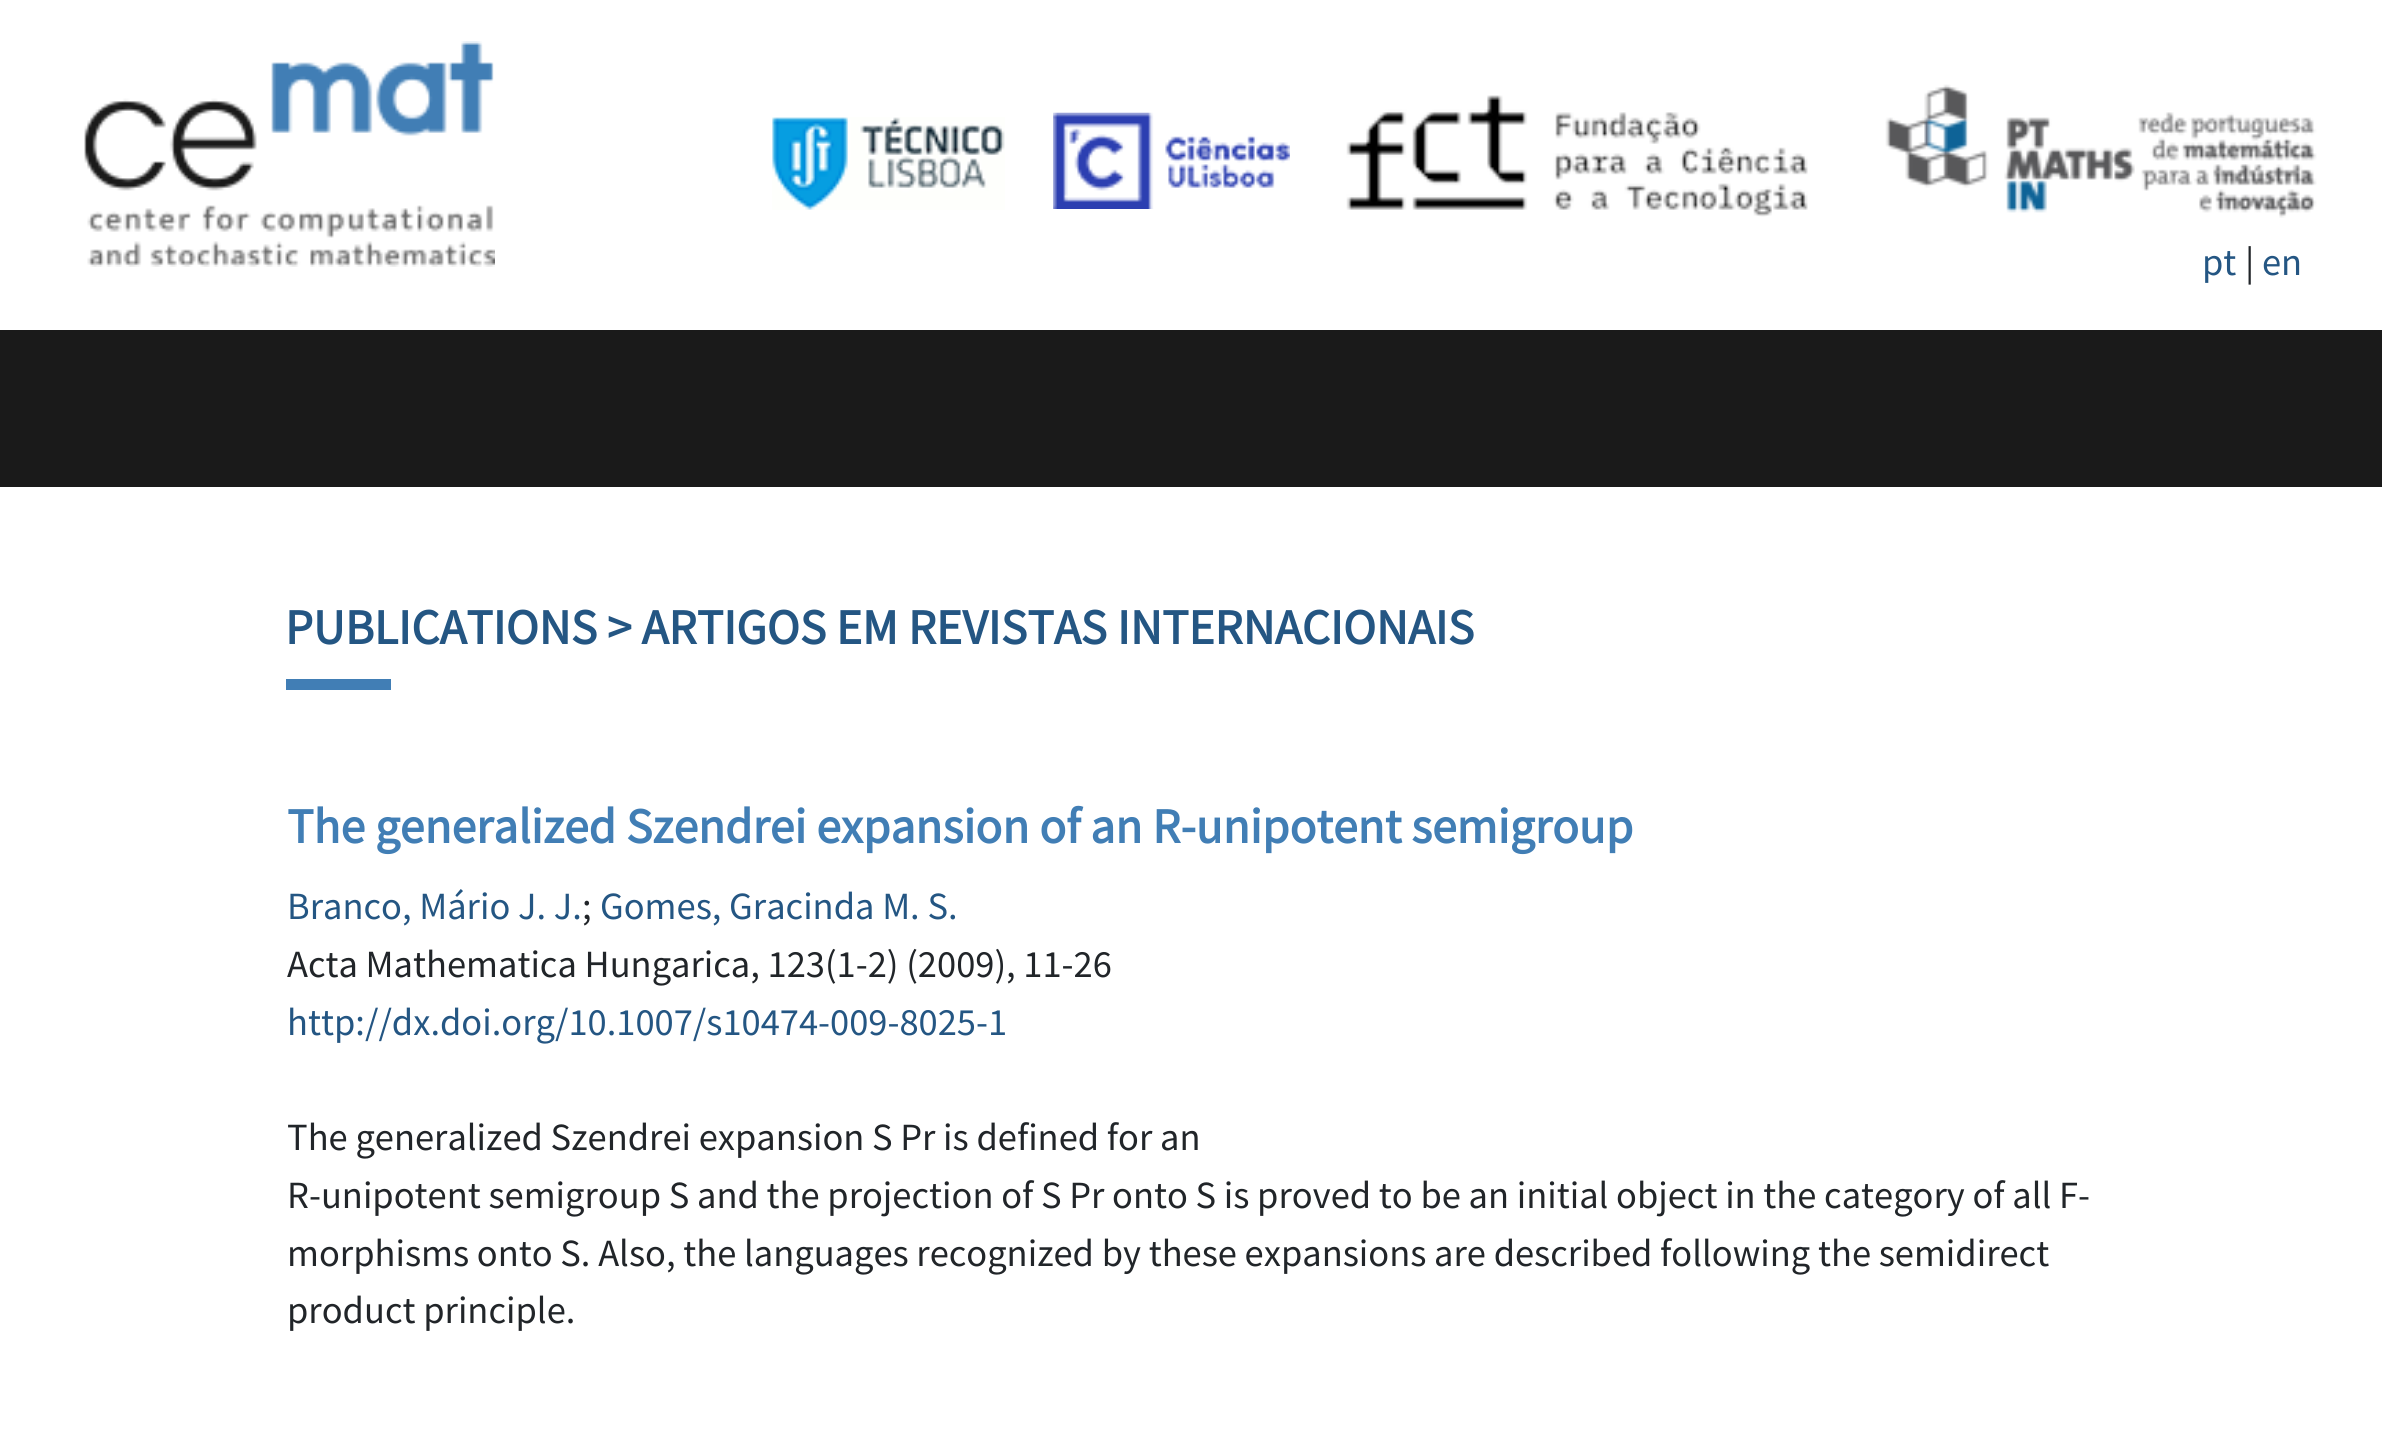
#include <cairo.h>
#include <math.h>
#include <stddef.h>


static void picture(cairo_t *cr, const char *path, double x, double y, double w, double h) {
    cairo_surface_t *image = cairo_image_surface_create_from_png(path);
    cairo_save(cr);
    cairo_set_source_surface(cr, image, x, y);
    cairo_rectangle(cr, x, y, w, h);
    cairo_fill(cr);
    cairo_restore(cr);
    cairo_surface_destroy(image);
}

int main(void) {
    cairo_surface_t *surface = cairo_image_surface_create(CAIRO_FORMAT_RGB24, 2382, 1453);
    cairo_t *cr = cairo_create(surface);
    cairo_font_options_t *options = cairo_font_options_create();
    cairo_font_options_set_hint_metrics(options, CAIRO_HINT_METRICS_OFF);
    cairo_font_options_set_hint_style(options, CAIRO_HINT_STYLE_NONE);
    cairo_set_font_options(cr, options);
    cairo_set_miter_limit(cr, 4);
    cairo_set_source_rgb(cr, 1, 1, 1);
    cairo_paint(cr);
    picture(cr, "img1.png", 84, 41, 411, 226);
    picture(cr, "img2.png", 772, 117, 233, 93);
    picture(cr, "img3.png", 1053, 112, 237, 97);
    picture(cr, "img4.png", 1346, 95, 462, 122);
    picture(cr, "img5.png", 1885, 84, 432, 134);
    cairo_select_font_face(cr, "Source Sans Pro", CAIRO_FONT_SLANT_NORMAL, CAIRO_FONT_WEIGHT_NORMAL);
    cairo_set_font_size(cr, 38.5);
    cairo_set_source_rgb(cr, 0.141, 0.337, 0.514);
    cairo_move_to(cr, 2202, 275);
    cairo_show_text(cr, "pt");
    cairo_set_source_rgb(cr, 0.129, 0.145, 0.161);
    cairo_move_to(cr, 2245, 275);
    cairo_show_text(cr, "|");
    cairo_set_source_rgb(cr, 0.141, 0.337, 0.514);
    cairo_move_to(cr, 2262, 275);
    cairo_show_text(cr, "en");
    cairo_set_source_rgb(cr, 0.102, 0.102, 0.102);
    cairo_rectangle(cr, 0, 330, 2382, 157);
    cairo_fill(cr);
    cairo_select_font_face(cr, "Source Sans Pro", CAIRO_FONT_SLANT_NORMAL, CAIRO_FONT_WEIGHT_BOLD);
    cairo_set_font_size(cr, 49.5);
    cairo_set_source_rgb(cr, 0.141, 0.337, 0.514);
    cairo_move_to(cr, 285, 644);
    cairo_show_text(cr, "PUBLICATIONS > ARTIGOS EM REVISTAS INTERNACIONAIS");
    cairo_set_source_rgb(cr, 0.255, 0.494, 0.71);
    cairo_rectangle(cr, 286, 679, 105, 11);
    cairo_fill(cr);
    cairo_move_to(cr, 287, 843);
    cairo_show_text(cr, "The generalized Szendrei expansion of an R-unipotent semigroup");
    cairo_select_font_face(cr, "Source Sans Pro", CAIRO_FONT_SLANT_NORMAL, CAIRO_FONT_WEIGHT_NORMAL);
    cairo_set_font_size(cr, 38.5);
    cairo_set_source_rgb(cr, 0.141, 0.337, 0.514);
    cairo_move_to(cr, 287, 919);
    cairo_show_text(cr, "Branco, Mário J. J.");
    cairo_set_source_rgb(cr, 0.129, 0.145, 0.161);
    cairo_move_to(cr, 582, 919);
    cairo_show_text(cr, ";");
    cairo_set_source_rgb(cr, 0.141, 0.337, 0.514);
    cairo_move_to(cr, 600, 919);
    cairo_show_text(cr, "Gomes, Gracinda M. S.");
    cairo_set_source_rgb(cr, 0.129, 0.145, 0.161);
    cairo_move_to(cr, 287, 977);
    cairo_show_text(cr, "Acta Mathematica Hungarica, 123(1-2) (2009), 11-26");
    cairo_set_source_rgb(cr, 0.141, 0.337, 0.514);
    cairo_move_to(cr, 287, 1035);
    cairo_show_text(cr, "http://dx.doi.org/10.1007/s10474-009-8025-1");
    cairo_set_source_rgb(cr, 0.129, 0.145, 0.161);
    cairo_move_to(cr, 287, 1150);
    cairo_show_text(cr, "The generalized Szendrei expansion S Pr is defined for an");
    cairo_move_to(cr, 287, 1208);
    cairo_show_text(cr, "R-unipotent semigroup S and the projection of S Pr onto S is proved to be an initial object in the category of all F-");
    cairo_move_to(cr, 287, 1266);
    cairo_show_text(cr, "morphisms onto S. Also, the languages recognized by these expansions are described following the semidirect");
    cairo_move_to(cr, 287, 1323);
    cairo_show_text(cr, "product principle.");
    cairo_surface_write_to_png(surface, "page.png");
    cairo_font_options_destroy(options);
    cairo_destroy(cr);
    cairo_surface_destroy(surface);
    return 0;
}
